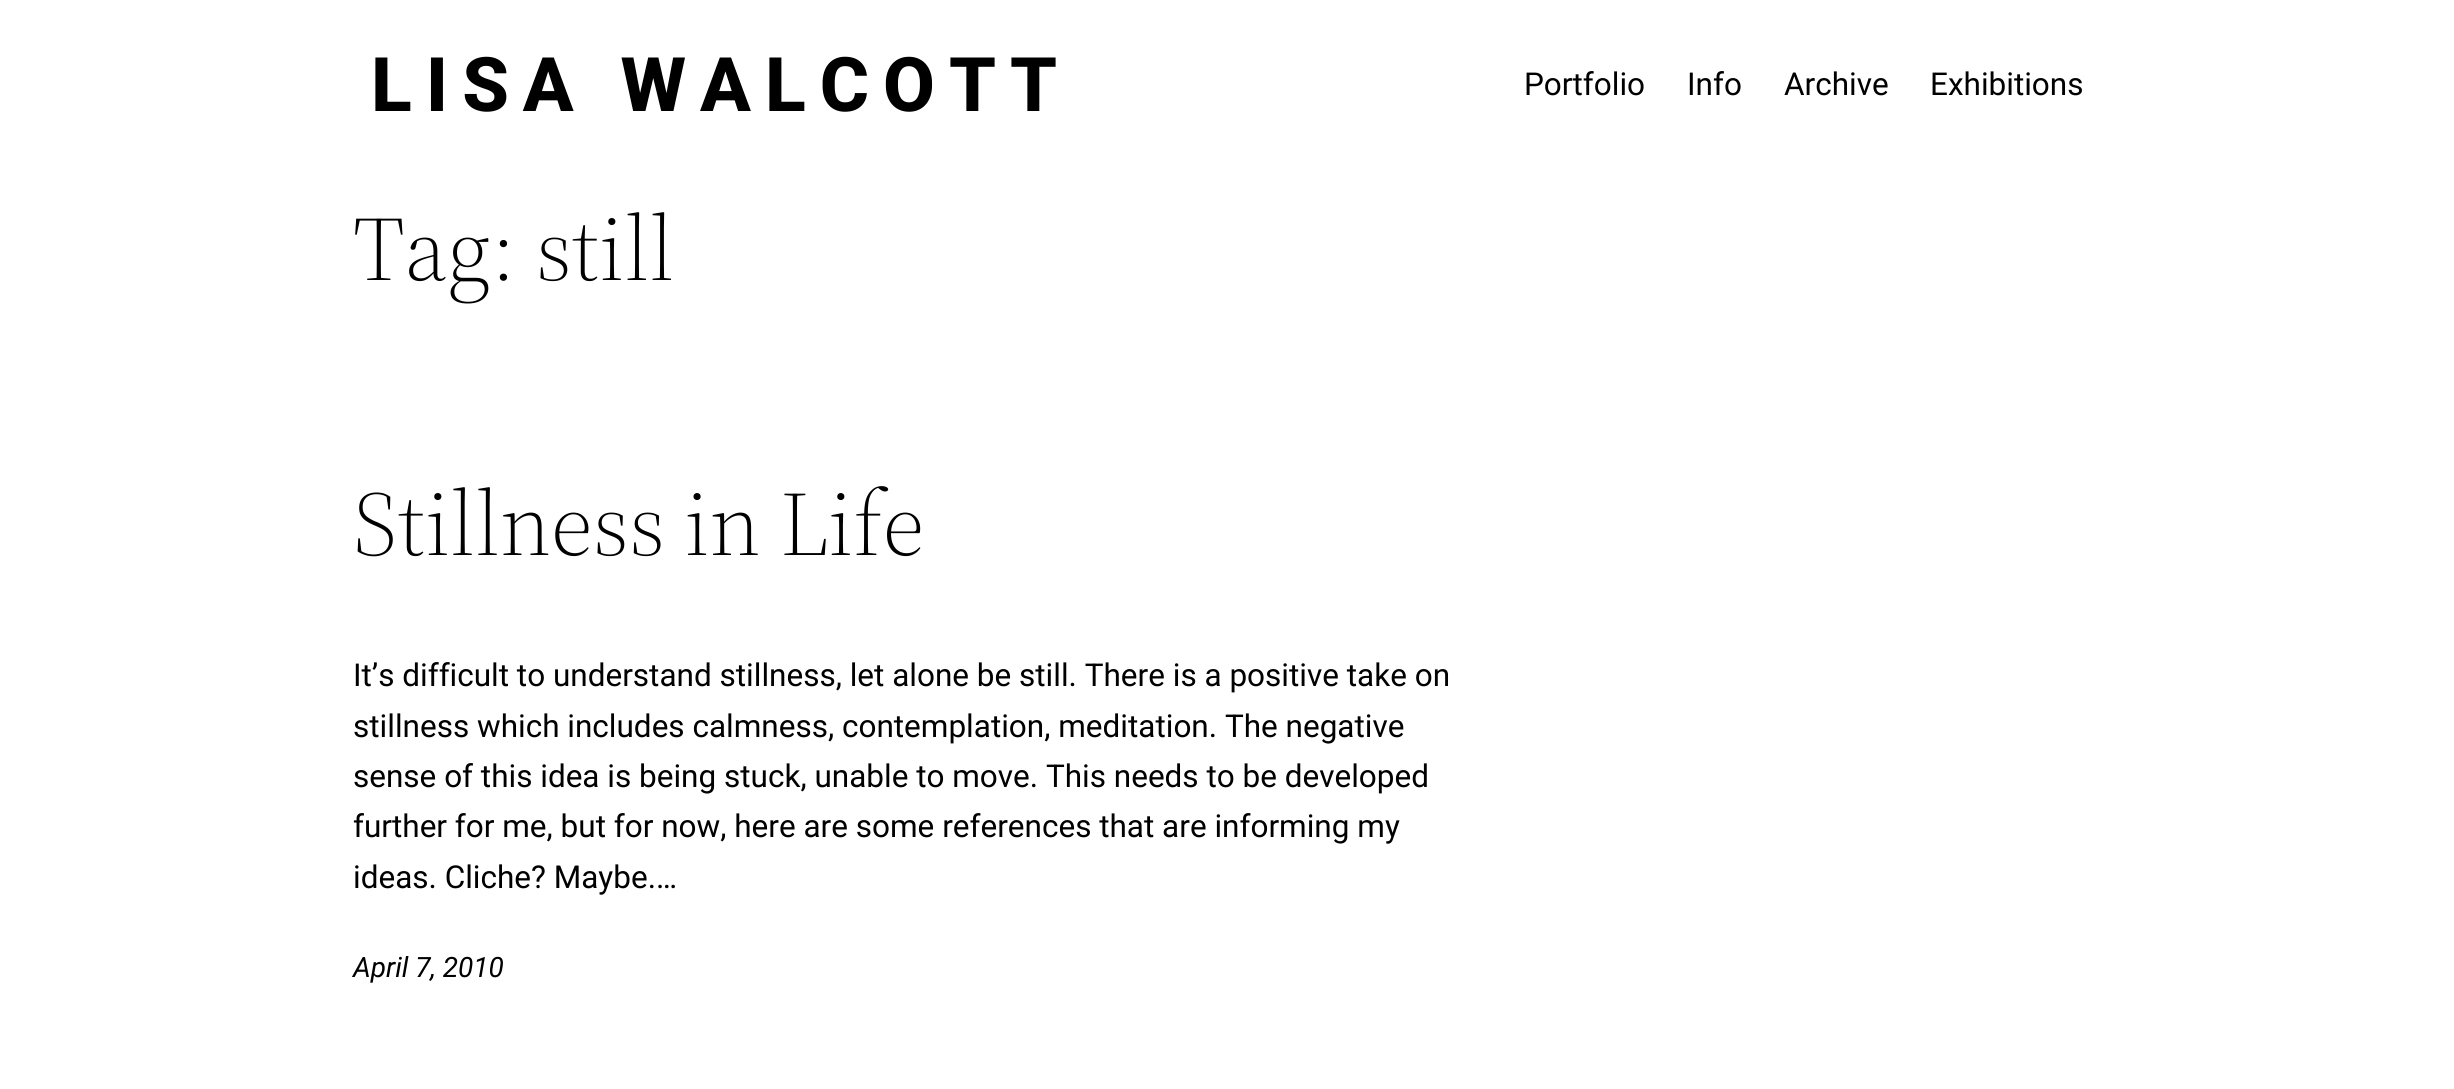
#include <cairo.h>
#include <math.h>
#include <stddef.h>


static void spaced_text(cairo_t *cr, double x, double y, const char *s, double letter, double word) {
    cairo_move_to(cr, x, y);
    while (*s) {
        char ch[5] = {0};
        int n = 0;
        do ch[n++] = *s++; while ((*s & 0xC0) == 0x80);
        cairo_show_text(cr, ch);
        cairo_rel_move_to(cr, letter + word * (*ch == ' '), 0);
    }
}

int main(void) {
    cairo_surface_t *surface = cairo_image_surface_create(CAIRO_FORMAT_RGB24, 2454, 1089);
    cairo_t *cr = cairo_create(surface);
    cairo_font_options_t *options = cairo_font_options_create();
    cairo_font_options_set_hint_metrics(options, CAIRO_HINT_METRICS_OFF);
    cairo_font_options_set_hint_style(options, CAIRO_HINT_STYLE_NONE);
    cairo_set_font_options(cr, options);
    cairo_set_miter_limit(cr, 4);
    cairo_set_source_rgb(cr, 1, 1, 1);
    cairo_paint(cr);
    cairo_select_font_face(cr, "Roboto ExtraBold", CAIRO_FONT_SLANT_NORMAL, CAIRO_FONT_WEIGHT_NORMAL);
    cairo_set_font_size(cr, 75.25);
    cairo_set_source_rgb(cr, 0, 0, 0);
    spaced_text(cr, 371, 111, "LISA WALCOTT", 14, 0);
    cairo_select_font_face(cr, "Roboto", CAIRO_FONT_SLANT_NORMAL, CAIRO_FONT_WEIGHT_NORMAL);
    cairo_set_font_size(cr, 31.5);
    cairo_move_to(cr, 1524, 95);
    cairo_show_text(cr, "Portfolio");
    cairo_move_to(cr, 1687, 95);
    cairo_show_text(cr, "Info");
    cairo_move_to(cr, 1784, 95);
    cairo_show_text(cr, "Archive");
    cairo_move_to(cr, 1930, 95);
    cairo_show_text(cr, "Exhibitions");
    cairo_select_font_face(cr, "Source Serif 4 Light", CAIRO_FONT_SLANT_NORMAL, CAIRO_FONT_WEIGHT_NORMAL);
    cairo_set_font_size(cr, 91);
    cairo_move_to(cr, 353, 280);
    cairo_show_text(cr, "Tag: still");
    cairo_move_to(cr, 353, 555);
    cairo_show_text(cr, "Stillness in Life");
    cairo_select_font_face(cr, "Roboto", CAIRO_FONT_SLANT_NORMAL, CAIRO_FONT_WEIGHT_NORMAL);
    cairo_set_font_size(cr, 31.5);
    cairo_move_to(cr, 353, 686);
    cairo_show_text(cr, "It’s difficult to understand stillness, let alone be still. There is a positive take on");
    cairo_move_to(cr, 353, 737);
    cairo_show_text(cr, "stillness which includes calmness, contemplation, meditation. The negative");
    cairo_move_to(cr, 353, 787);
    cairo_show_text(cr, "sense of this idea is being stuck, unable to move. This needs to be developed");
    cairo_move_to(cr, 353, 837);
    cairo_show_text(cr, "further for me, but for now, here are some references that are informing my");
    cairo_move_to(cr, 353, 888);
    cairo_show_text(cr, "ideas. Cliche? Maybe.…");
    cairo_select_font_face(cr, "Roboto", CAIRO_FONT_SLANT_ITALIC, CAIRO_FONT_WEIGHT_NORMAL);
    cairo_set_font_size(cr, 28);
    cairo_move_to(cr, 353, 977);
    cairo_show_text(cr, "April 7, 2010");
    cairo_surface_write_to_png(surface, "page.png");
    cairo_font_options_destroy(options);
    cairo_destroy(cr);
    cairo_surface_destroy(surface);
    return 0;
}
